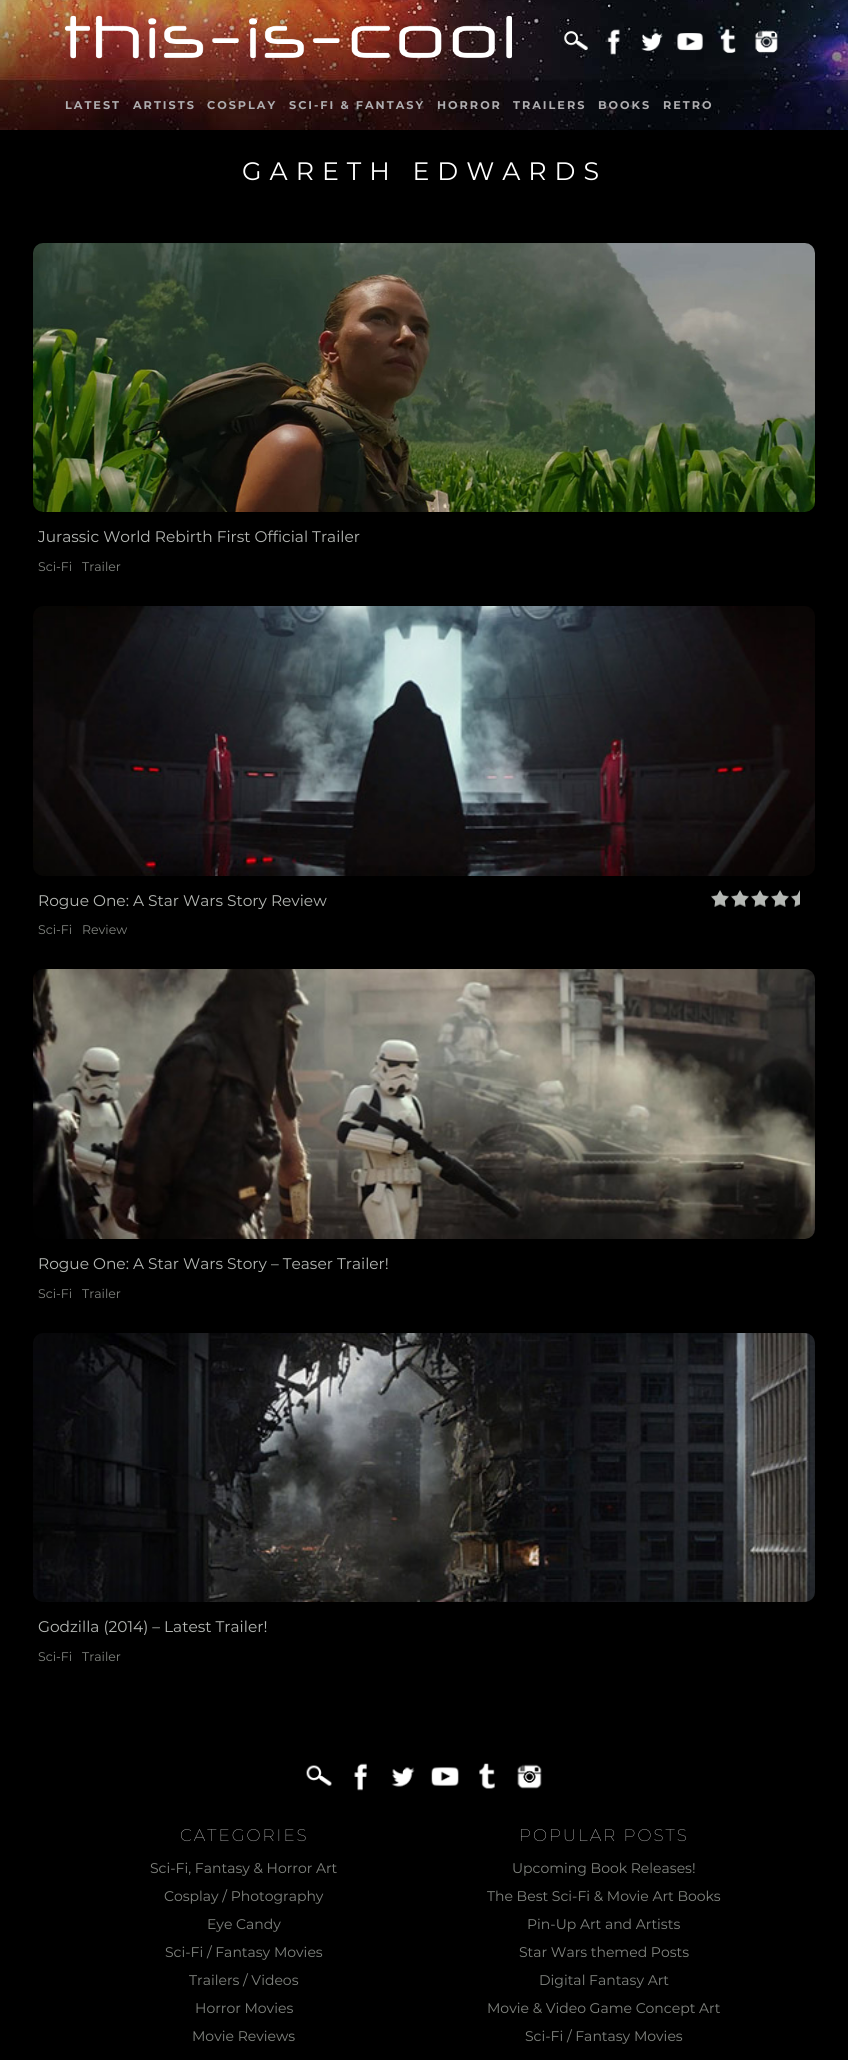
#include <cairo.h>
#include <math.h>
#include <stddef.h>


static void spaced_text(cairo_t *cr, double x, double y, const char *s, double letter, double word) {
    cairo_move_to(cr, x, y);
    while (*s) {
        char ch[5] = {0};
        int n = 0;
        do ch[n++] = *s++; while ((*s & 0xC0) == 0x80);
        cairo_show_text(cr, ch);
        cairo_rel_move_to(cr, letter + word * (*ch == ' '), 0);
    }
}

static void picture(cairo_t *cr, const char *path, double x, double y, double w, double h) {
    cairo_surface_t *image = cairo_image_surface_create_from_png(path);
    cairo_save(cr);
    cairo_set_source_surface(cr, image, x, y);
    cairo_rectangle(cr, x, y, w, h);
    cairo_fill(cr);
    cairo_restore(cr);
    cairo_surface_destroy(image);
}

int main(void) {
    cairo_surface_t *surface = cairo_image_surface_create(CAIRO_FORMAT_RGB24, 848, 2060);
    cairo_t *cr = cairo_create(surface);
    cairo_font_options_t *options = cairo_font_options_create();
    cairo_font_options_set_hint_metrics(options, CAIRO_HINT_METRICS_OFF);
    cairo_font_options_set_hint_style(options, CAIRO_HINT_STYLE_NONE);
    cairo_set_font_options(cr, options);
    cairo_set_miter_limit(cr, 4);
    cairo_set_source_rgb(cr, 0, 0, 0);
    cairo_paint(cr);
    picture(cr, "img1.png", 0, 0, 848, 130);
    picture(cr, "img2.png", 64, 15, 448, 44);
    picture(cr, "img3.png", 564, 31, 24, 20);
    picture(cr, "img4.png", 607, 29, 13, 26);
    picture(cr, "img5.png", 641, 33, 22, 18);
    picture(cr, "img6.png", 677, 33, 26, 18);
    picture(cr, "img7.png", 720, 29, 16, 24);
    picture(cr, "img8.png", 755, 30, 23, 23);
    cairo_select_font_face(cr, "Montserrat", CAIRO_FONT_SLANT_NORMAL, CAIRO_FONT_WEIGHT_BOLD);
    cairo_set_font_size(cr, 11.25);
    cairo_set_source_rgb(cr, 0.682, 0.678, 0.686);
    spaced_text(cr, 65, 109, "LATEST", 2, 0);
    spaced_text(cr, 133, 109, "ARTISTS", 2, 0);
    spaced_text(cr, 207, 109, "COSPLAY", 2, 0);
    spaced_text(cr, 289, 109, "SCI-FI & FANTASY", 2, 0);
    spaced_text(cr, 437, 109, "HORROR", 2, 0);
    spaced_text(cr, 513, 109, "TRAILERS", 2, 0);
    spaced_text(cr, 598, 109, "BOOKS", 2, 0);
    spaced_text(cr, 663, 109, "RETRO", 2, 0);
    cairo_select_font_face(cr, "Montserrat", CAIRO_FONT_SLANT_NORMAL, CAIRO_FONT_WEIGHT_NORMAL);
    cairo_set_font_size(cr, 25.25);
    cairo_set_source_rgb(cr, 1, 1, 1);
    spaced_text(cr, 242, 180, "GARETH EDWARDS", 8, 0);
    picture(cr, "img9.png", 33, 243, 782, 269);
    cairo_set_font_size(cr, 15.4);
    cairo_set_source_rgb(cr, 0.71, 0.722, 0.706);
    cairo_move_to(cr, 38, 542);
    cairo_show_text(cr, "Jurassic World Rebirth First Official Trailer");
    cairo_set_font_size(cr, 12.5);
    cairo_set_source_rgb(cr, 0.506, 0.518, 0.498);
    cairo_move_to(cr, 38, 571);
    cairo_show_text(cr, "Sci-Fi");
    cairo_move_to(cr, 82, 571);
    cairo_show_text(cr, "Trailer");
    picture(cr, "img10.png", 33, 606, 782, 270);
    picture(cr, "img11.png", 711, 890, 89, 17);
    cairo_set_font_size(cr, 15.4);
    cairo_set_source_rgb(cr, 0.71, 0.722, 0.706);
    cairo_move_to(cr, 38, 906);
    cairo_show_text(cr, "Rogue One: A Star Wars Story Review");
    cairo_set_font_size(cr, 12.5);
    cairo_set_source_rgb(cr, 0.506, 0.518, 0.498);
    cairo_move_to(cr, 38, 934);
    cairo_show_text(cr, "Sci-Fi");
    cairo_move_to(cr, 82, 934);
    cairo_show_text(cr, "Review");
    picture(cr, "img12.png", 33, 969, 782, 270);
    cairo_set_font_size(cr, 15.4);
    cairo_set_source_rgb(cr, 0.71, 0.722, 0.706);
    cairo_move_to(cr, 38, 1269);
    cairo_show_text(cr, "Rogue One: A Star Wars Story – Teaser Trailer!");
    cairo_set_font_size(cr, 12.5);
    cairo_set_source_rgb(cr, 0.506, 0.518, 0.498);
    cairo_move_to(cr, 38, 1298);
    cairo_show_text(cr, "Sci-Fi");
    cairo_move_to(cr, 82, 1298);
    cairo_show_text(cr, "Trailer");
    picture(cr, "img13.png", 33, 1333, 782, 269);
    cairo_set_font_size(cr, 15.4);
    cairo_set_source_rgb(cr, 0.71, 0.722, 0.706);
    cairo_move_to(cr, 38, 1632);
    cairo_show_text(cr, "Godzilla (2014) – Latest Trailer!");
    cairo_set_font_size(cr, 12.5);
    cairo_set_source_rgb(cr, 0.506, 0.518, 0.498);
    cairo_move_to(cr, 38, 1661);
    cairo_show_text(cr, "Sci-Fi");
    cairo_move_to(cr, 82, 1661);
    cairo_show_text(cr, "Trailer");
    picture(cr, "img14.png", 306, 1765, 26, 21);
    picture(cr, "img15.png", 354, 1763, 13, 28);
    picture(cr, "img16.png", 391, 1767, 24, 20);
    picture(cr, "img17.png", 431, 1767, 28, 19);
    picture(cr, "img18.png", 479, 1763, 16, 26);
    picture(cr, "img19.png", 517, 1764, 25, 25);
    cairo_select_font_face(cr, "Montserrat Thin", CAIRO_FONT_SLANT_NORMAL, CAIRO_FONT_WEIGHT_NORMAL);
    cairo_set_font_size(cr, 16.75);
    cairo_set_source_rgb(cr, 1, 1, 1);
    spaced_text(cr, 180, 1841, "CATEGORIES", 2, 0);
    cairo_select_font_face(cr, "Montserrat", CAIRO_FONT_SLANT_NORMAL, CAIRO_FONT_WEIGHT_NORMAL);
    cairo_set_font_size(cr, 14);
    cairo_set_source_rgb(cr, 0.506, 0.518, 0.498);
    cairo_move_to(cr, 150, 1873);
    cairo_show_text(cr, "Sci-Fi, Fantasy & Horror Art");
    cairo_move_to(cr, 164, 1901);
    cairo_show_text(cr, "Cosplay / Photography");
    cairo_move_to(cr, 207, 1929);
    cairo_show_text(cr, "Eye Candy");
    cairo_move_to(cr, 165, 1957);
    cairo_show_text(cr, "Sci-Fi / Fantasy Movies");
    cairo_move_to(cr, 189, 1985);
    cairo_show_text(cr, "Trailers / Videos");
    cairo_move_to(cr, 195, 2013);
    cairo_show_text(cr, "Horror Movies");
    cairo_move_to(cr, 192, 2041);
    cairo_show_text(cr, "Movie Reviews");
    cairo_select_font_face(cr, "Montserrat Thin", CAIRO_FONT_SLANT_NORMAL, CAIRO_FONT_WEIGHT_NORMAL);
    cairo_set_font_size(cr, 16.75);
    cairo_set_source_rgb(cr, 1, 1, 1);
    spaced_text(cr, 519, 1841, "POPULAR POSTS", 2, 0);
    cairo_select_font_face(cr, "Montserrat", CAIRO_FONT_SLANT_NORMAL, CAIRO_FONT_WEIGHT_NORMAL);
    cairo_set_font_size(cr, 14);
    cairo_set_source_rgb(cr, 0.506, 0.518, 0.498);
    cairo_move_to(cr, 512, 1873);
    cairo_show_text(cr, "Upcoming Book Releases!");
    cairo_move_to(cr, 487, 1901);
    cairo_show_text(cr, "The Best Sci-Fi & Movie Art Books");
    cairo_move_to(cr, 527, 1929);
    cairo_show_text(cr, "Pin-Up Art and Artists");
    cairo_move_to(cr, 519, 1957);
    cairo_show_text(cr, "Star Wars themed Posts");
    cairo_move_to(cr, 539, 1985);
    cairo_show_text(cr, "Digital Fantasy Art");
    cairo_move_to(cr, 487, 2013);
    cairo_show_text(cr, "Movie & Video Game Concept Art");
    cairo_move_to(cr, 525, 2041);
    cairo_show_text(cr, "Sci-Fi / Fantasy Movies");
    cairo_surface_write_to_png(surface, "page.png");
    cairo_font_options_destroy(options);
    cairo_destroy(cr);
    cairo_surface_destroy(surface);
    return 0;
}
